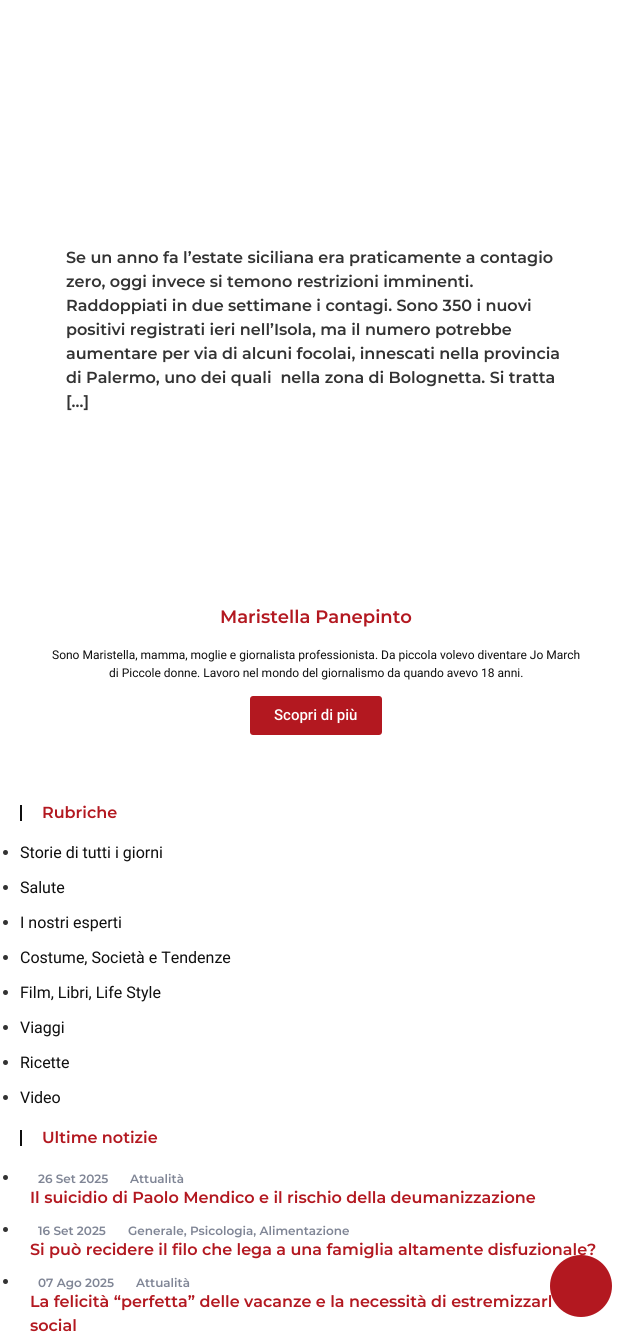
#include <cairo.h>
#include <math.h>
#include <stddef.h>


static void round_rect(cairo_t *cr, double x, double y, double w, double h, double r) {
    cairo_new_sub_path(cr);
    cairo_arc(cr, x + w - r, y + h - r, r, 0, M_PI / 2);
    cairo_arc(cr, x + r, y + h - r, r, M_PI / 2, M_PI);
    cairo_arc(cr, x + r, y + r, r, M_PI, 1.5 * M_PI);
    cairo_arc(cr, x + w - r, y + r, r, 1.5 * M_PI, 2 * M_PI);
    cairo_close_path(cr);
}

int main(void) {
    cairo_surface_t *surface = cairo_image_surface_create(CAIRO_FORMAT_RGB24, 632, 1337);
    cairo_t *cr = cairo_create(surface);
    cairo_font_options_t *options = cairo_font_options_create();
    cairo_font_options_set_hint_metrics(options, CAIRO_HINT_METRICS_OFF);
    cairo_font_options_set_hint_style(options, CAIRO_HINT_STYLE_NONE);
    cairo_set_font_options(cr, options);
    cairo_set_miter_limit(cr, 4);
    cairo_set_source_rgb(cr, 1, 1, 1);
    cairo_paint(cr);
    cairo_select_font_face(cr, "Montserrat SemiBold", CAIRO_FONT_SLANT_NORMAL, CAIRO_FONT_WEIGHT_NORMAL);
    cairo_set_font_size(cr, 16);
    cairo_set_source_rgb(cr, 0.2, 0.2, 0.2);
    cairo_move_to(cr, 66, 263);
    cairo_show_text(cr, "Se un anno fa l’estate siciliana era praticamente a contagio");
    cairo_move_to(cr, 66, 287);
    cairo_show_text(cr, "zero, oggi invece si temono restrizioni imminenti.");
    cairo_move_to(cr, 66, 311);
    cairo_show_text(cr, "Raddoppiati in due settimane i contagi. Sono 350 i nuovi");
    cairo_move_to(cr, 66, 335);
    cairo_show_text(cr, "positivi registrati ieri nell’Isola, ma il numero potrebbe");
    cairo_move_to(cr, 66, 359);
    cairo_show_text(cr, "aumentare per via di alcuni focolai, innescati nella provincia");
    cairo_move_to(cr, 66, 383);
    cairo_show_text(cr, "di Palermo, uno dei quali  nella zona di Bolognetta. Si tratta");
    cairo_move_to(cr, 66, 407);
    cairo_show_text(cr, "[…]");
    cairo_set_font_size(cr, 18);
    cairo_set_source_rgb(cr, 0.702, 0.094, 0.125);
    cairo_move_to(cr, 220, 623);
    cairo_show_text(cr, "Maristella Panepinto");
    cairo_select_font_face(cr, "Roboto", CAIRO_FONT_SLANT_NORMAL, CAIRO_FONT_WEIGHT_NORMAL);
    cairo_set_font_size(cr, 12);
    cairo_set_source_rgb(cr, 0.059, 0.059, 0.059);
    cairo_move_to(cr, 52, 659);
    cairo_show_text(cr, "Sono Maristella, mamma, moglie e giornalista professionista. Da piccola volevo diventare Jo March");
    cairo_move_to(cr, 109, 677);
    cairo_show_text(cr, "di Piccole donne. Lavoro nel mondo del giornalismo da quando avevo 18 anni.");
    cairo_set_source_rgb(cr, 0.702, 0.094, 0.125);
    round_rect(cr, 250, 696, 132, 39, 3);
    cairo_fill(cr);
    cairo_select_font_face(cr, "Roboto Medium", CAIRO_FONT_SLANT_NORMAL, CAIRO_FONT_WEIGHT_NORMAL);
    cairo_set_font_size(cr, 15);
    cairo_set_source_rgb(cr, 1, 1, 1);
    cairo_move_to(cr, 274, 720);
    cairo_show_text(cr, "Scopri di più");
    cairo_set_source_rgb(cr, 0.059, 0.059, 0.059);
    cairo_rectangle(cr, 20, 805, 2, 16);
    cairo_fill(cr);
    cairo_select_font_face(cr, "Montserrat SemiBold", CAIRO_FONT_SLANT_NORMAL, CAIRO_FONT_WEIGHT_NORMAL);
    cairo_set_font_size(cr, 16);
    cairo_set_source_rgb(cr, 0.702, 0.094, 0.125);
    cairo_move_to(cr, 42, 818);
    cairo_show_text(cr, "Rubriche");
    cairo_set_source_rgb(cr, 0.2, 0.2, 0.2);
    cairo_new_path(cr);
    cairo_arc(cr, 5.5, 852.5, 2.5, 0, 2 * M_PI);
    cairo_fill(cr);
    cairo_select_font_face(cr, "Roboto", CAIRO_FONT_SLANT_NORMAL, CAIRO_FONT_WEIGHT_NORMAL);
    cairo_set_source_rgb(cr, 0.059, 0.059, 0.059);
    cairo_move_to(cr, 20, 858);
    cairo_show_text(cr, "Storie di tutti i giorni");
    cairo_set_source_rgb(cr, 0.2, 0.2, 0.2);
    cairo_new_path(cr);
    cairo_arc(cr, 5.5, 887.5, 2.5, 0, 2 * M_PI);
    cairo_fill(cr);
    cairo_set_source_rgb(cr, 0.059, 0.059, 0.059);
    cairo_move_to(cr, 20, 893);
    cairo_show_text(cr, "Salute");
    cairo_set_source_rgb(cr, 0.2, 0.2, 0.2);
    cairo_new_path(cr);
    cairo_arc(cr, 5.5, 922.5, 2.5, 0, 2 * M_PI);
    cairo_fill(cr);
    cairo_set_source_rgb(cr, 0.059, 0.059, 0.059);
    cairo_move_to(cr, 20, 928);
    cairo_show_text(cr, "I nostri esperti");
    cairo_set_source_rgb(cr, 0.2, 0.2, 0.2);
    cairo_new_path(cr);
    cairo_arc(cr, 5.5, 957.5, 2.5, 0, 2 * M_PI);
    cairo_fill(cr);
    cairo_set_source_rgb(cr, 0.059, 0.059, 0.059);
    cairo_move_to(cr, 20, 963);
    cairo_show_text(cr, "Costume, Società e Tendenze");
    cairo_set_source_rgb(cr, 0.2, 0.2, 0.2);
    cairo_new_path(cr);
    cairo_arc(cr, 5.5, 992.5, 2.5, 0, 2 * M_PI);
    cairo_fill(cr);
    cairo_set_source_rgb(cr, 0.059, 0.059, 0.059);
    cairo_move_to(cr, 20, 998);
    cairo_show_text(cr, "Film, Libri, Life Style");
    cairo_set_source_rgb(cr, 0.2, 0.2, 0.2);
    cairo_new_path(cr);
    cairo_arc(cr, 5.5, 1027.5, 2.5, 0, 2 * M_PI);
    cairo_fill(cr);
    cairo_set_source_rgb(cr, 0.059, 0.059, 0.059);
    cairo_move_to(cr, 20, 1033);
    cairo_show_text(cr, "Viaggi");
    cairo_set_source_rgb(cr, 0.2, 0.2, 0.2);
    cairo_new_path(cr);
    cairo_arc(cr, 5.5, 1062.5, 2.5, 0, 2 * M_PI);
    cairo_fill(cr);
    cairo_set_source_rgb(cr, 0.059, 0.059, 0.059);
    cairo_move_to(cr, 20, 1068);
    cairo_show_text(cr, "Ricette");
    cairo_set_source_rgb(cr, 0.2, 0.2, 0.2);
    cairo_new_path(cr);
    cairo_arc(cr, 5.5, 1097.5, 2.5, 0, 2 * M_PI);
    cairo_fill(cr);
    cairo_set_source_rgb(cr, 0.059, 0.059, 0.059);
    cairo_move_to(cr, 20, 1103);
    cairo_show_text(cr, "Video");
    cairo_rectangle(cr, 20, 1130, 2, 16);
    cairo_fill(cr);
    cairo_select_font_face(cr, "Montserrat SemiBold", CAIRO_FONT_SLANT_NORMAL, CAIRO_FONT_WEIGHT_NORMAL);
    cairo_set_source_rgb(cr, 0.702, 0.094, 0.125);
    cairo_move_to(cr, 42, 1143);
    cairo_show_text(cr, "Ultime notizie");
    cairo_set_source_rgb(cr, 0.2, 0.2, 0.2);
    cairo_new_path(cr);
    cairo_arc(cr, 5.5, 1177.5, 2.5, 0, 2 * M_PI);
    cairo_fill(cr);
    cairo_set_font_size(cr, 12);
    cairo_set_source_rgb(cr, 0.498, 0.522, 0.584);
    cairo_move_to(cr, 38, 1183);
    cairo_show_text(cr, "26 Set 2025");
    cairo_move_to(cr, 130, 1183);
    cairo_show_text(cr, "Attualità");
    cairo_set_font_size(cr, 16);
    cairo_set_source_rgb(cr, 0.702, 0.094, 0.125);
    cairo_move_to(cr, 30, 1203);
    cairo_show_text(cr, "Il suicidio di Paolo Mendico e il rischio della deumanizzazione");
    cairo_set_source_rgb(cr, 0.2, 0.2, 0.2);
    cairo_new_path(cr);
    cairo_arc(cr, 5.5, 1229.5, 2.5, 0, 2 * M_PI);
    cairo_fill(cr);
    cairo_set_font_size(cr, 12);
    cairo_set_source_rgb(cr, 0.498, 0.522, 0.584);
    cairo_move_to(cr, 38, 1235);
    cairo_show_text(cr, "16 Set 2025");
    cairo_move_to(cr, 128, 1235);
    cairo_show_text(cr, "Generale, Psicologia, Alimentazione");
    cairo_set_font_size(cr, 16);
    cairo_set_source_rgb(cr, 0.702, 0.094, 0.125);
    cairo_move_to(cr, 30, 1255);
    cairo_show_text(cr, "Si può recidere il filo che lega a una famiglia altamente disfuzionale?");
    cairo_set_source_rgb(cr, 0.2, 0.2, 0.2);
    cairo_new_path(cr);
    cairo_arc(cr, 5.5, 1281.5, 2.5, 0, 2 * M_PI);
    cairo_fill(cr);
    cairo_set_font_size(cr, 12);
    cairo_set_source_rgb(cr, 0.498, 0.522, 0.584);
    cairo_move_to(cr, 38, 1287);
    cairo_show_text(cr, "07 Ago 2025");
    cairo_move_to(cr, 136, 1287);
    cairo_show_text(cr, "Attualità");
    cairo_set_font_size(cr, 16);
    cairo_set_source_rgb(cr, 0.702, 0.094, 0.125);
    cairo_move_to(cr, 30, 1307);
    cairo_show_text(cr, "La felicità “perfetta” delle vacanze e la necessità di estremizzarl");
    cairo_move_to(cr, 30, 1331);
    cairo_show_text(cr, "social");
    cairo_new_path(cr);
    cairo_arc(cr, 581, 1286, 31, 0, 2 * M_PI);
    cairo_fill(cr);
    cairo_surface_write_to_png(surface, "page.png");
    cairo_font_options_destroy(options);
    cairo_destroy(cr);
    cairo_surface_destroy(surface);
    return 0;
}
